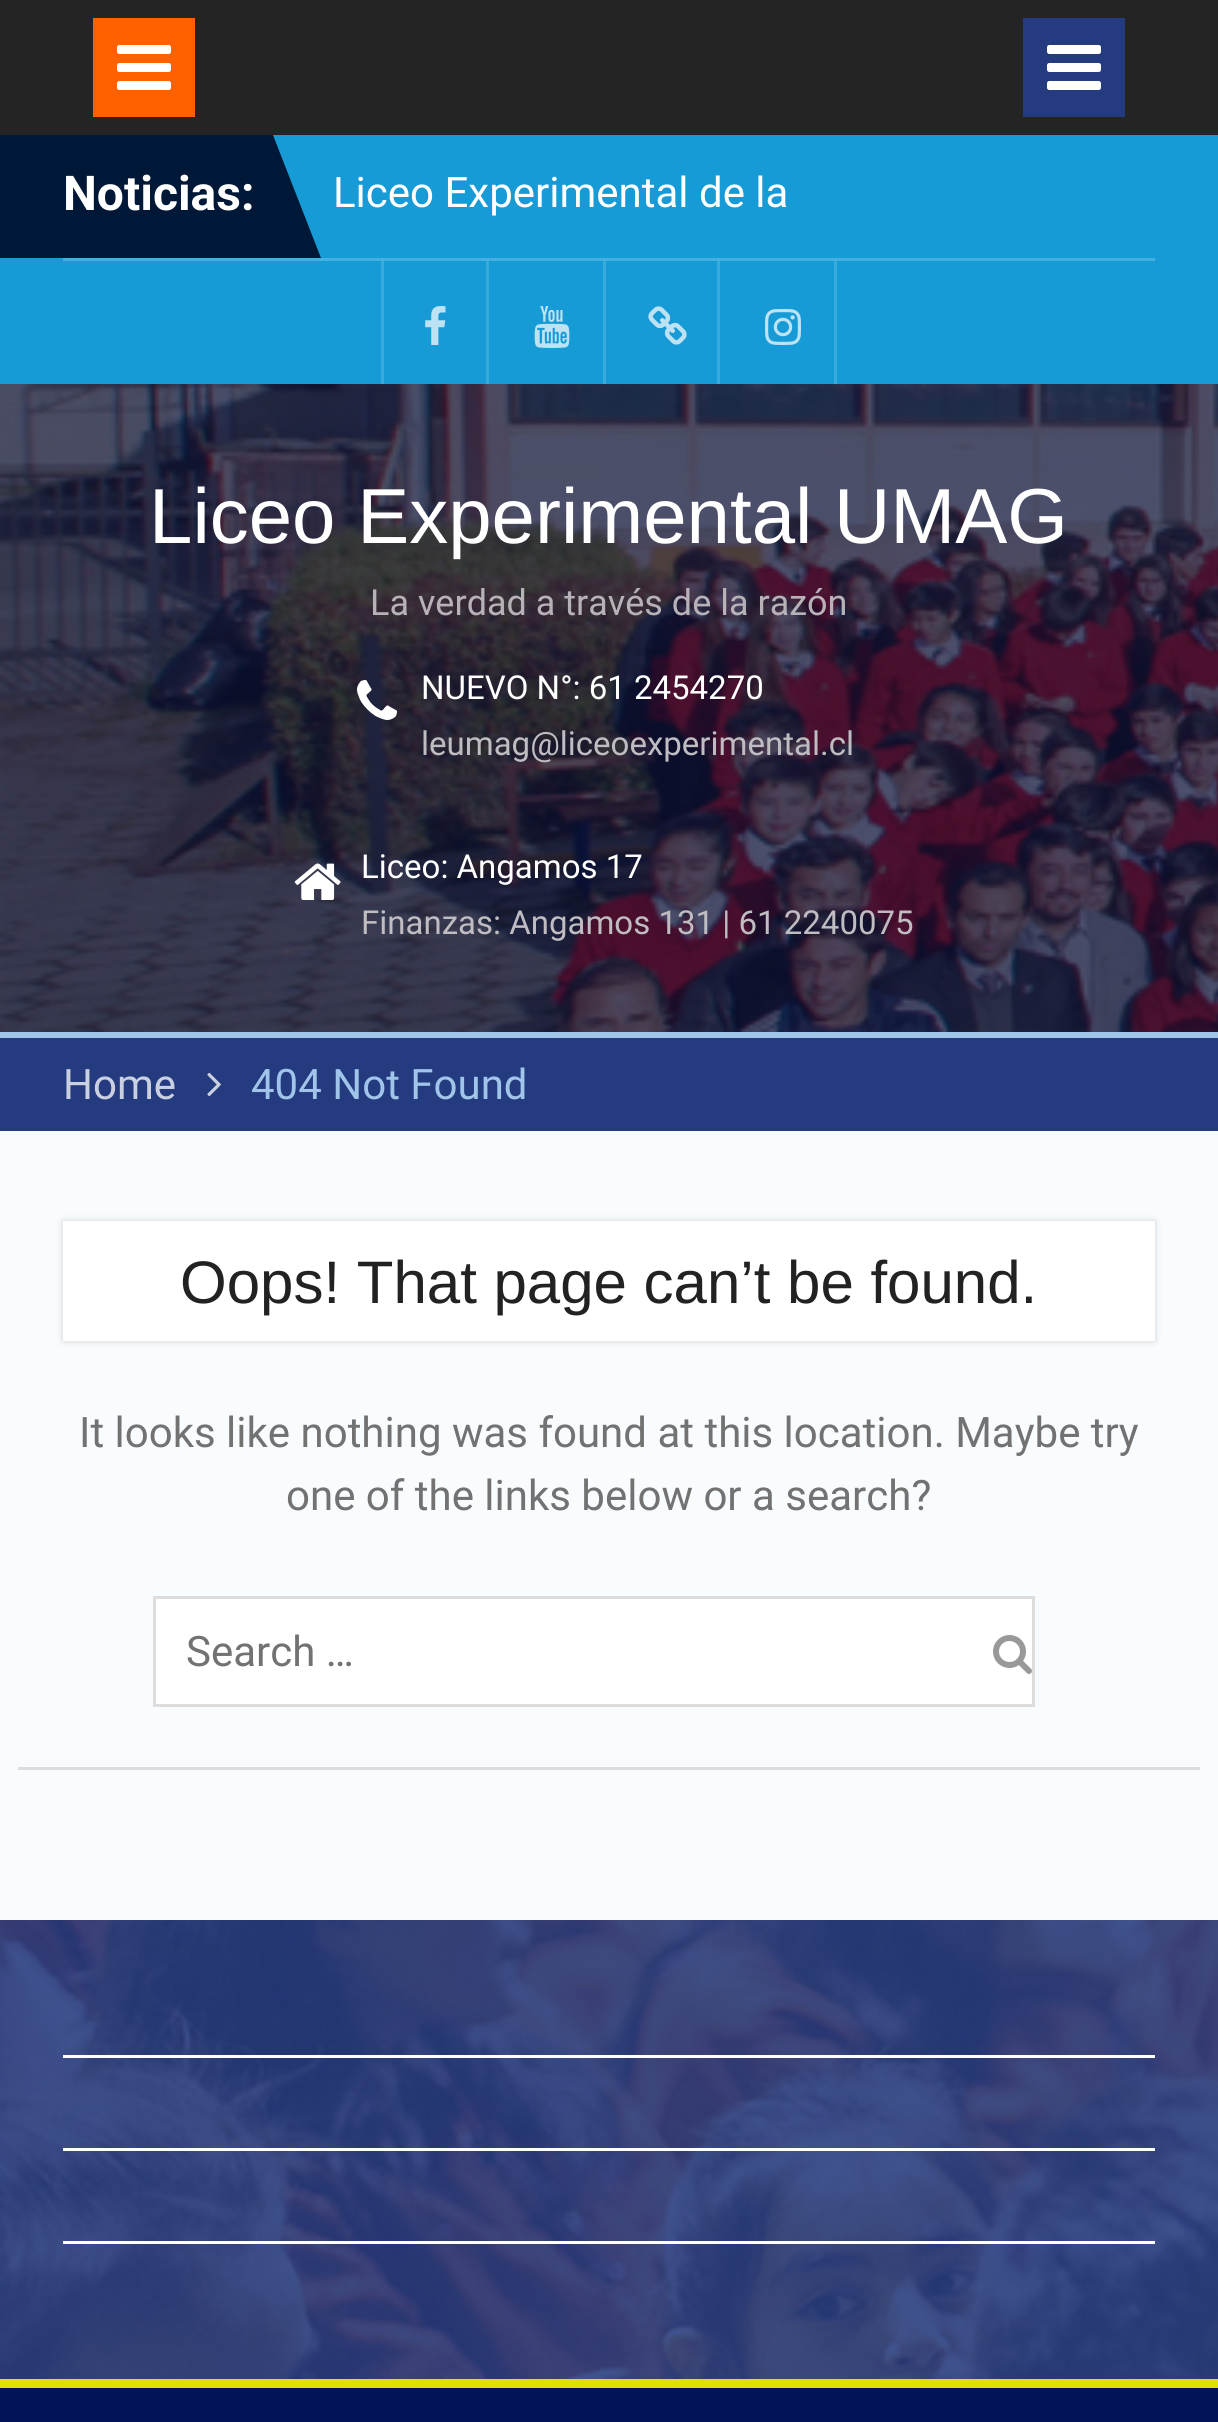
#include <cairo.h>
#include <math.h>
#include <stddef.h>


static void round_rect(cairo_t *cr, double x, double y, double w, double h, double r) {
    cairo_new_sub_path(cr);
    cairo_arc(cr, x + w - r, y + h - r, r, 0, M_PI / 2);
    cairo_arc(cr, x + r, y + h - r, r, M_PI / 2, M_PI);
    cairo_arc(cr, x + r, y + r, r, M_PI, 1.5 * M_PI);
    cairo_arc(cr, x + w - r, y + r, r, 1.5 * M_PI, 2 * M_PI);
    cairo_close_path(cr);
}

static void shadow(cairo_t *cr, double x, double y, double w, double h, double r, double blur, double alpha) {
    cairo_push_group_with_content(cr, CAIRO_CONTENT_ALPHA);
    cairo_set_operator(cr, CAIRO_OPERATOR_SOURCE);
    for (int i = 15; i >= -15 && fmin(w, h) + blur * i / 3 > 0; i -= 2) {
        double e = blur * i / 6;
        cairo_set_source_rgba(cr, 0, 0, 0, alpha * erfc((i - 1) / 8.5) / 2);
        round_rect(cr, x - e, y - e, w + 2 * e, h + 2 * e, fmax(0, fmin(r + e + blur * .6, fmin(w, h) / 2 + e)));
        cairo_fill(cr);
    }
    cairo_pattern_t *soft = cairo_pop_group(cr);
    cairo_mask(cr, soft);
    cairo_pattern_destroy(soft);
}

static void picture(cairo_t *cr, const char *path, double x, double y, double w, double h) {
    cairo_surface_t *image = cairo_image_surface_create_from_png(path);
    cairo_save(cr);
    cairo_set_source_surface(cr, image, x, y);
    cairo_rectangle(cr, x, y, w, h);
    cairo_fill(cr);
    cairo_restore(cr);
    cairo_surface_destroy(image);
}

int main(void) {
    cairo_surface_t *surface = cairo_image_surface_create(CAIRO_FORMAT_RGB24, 1218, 2422);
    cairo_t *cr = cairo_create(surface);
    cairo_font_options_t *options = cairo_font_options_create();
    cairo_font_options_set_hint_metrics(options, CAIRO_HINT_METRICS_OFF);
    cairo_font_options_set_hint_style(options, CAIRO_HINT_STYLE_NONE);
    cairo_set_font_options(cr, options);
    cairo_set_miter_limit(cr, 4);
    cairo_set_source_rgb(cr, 0.969, 0.988, 0.996);
    cairo_paint(cr);
    cairo_set_source_rgb(cr, 0.141, 0.141, 0.141);
    cairo_rectangle(cr, 0, 0, 1218, 135);
    cairo_fill(cr);
    cairo_set_source_rgb(cr, 1, 0.376, 0);
    cairo_rectangle(cr, 93, 18, 102, 99);
    cairo_fill(cr);
    picture(cr, "img1.png", 117, 45, 54, 45);
    cairo_set_source_rgb(cr, 0.145, 0.231, 0.502);
    cairo_rectangle(cr, 1023, 18, 102, 99);
    cairo_fill(cr);
    picture(cr, "img2.png", 1047, 45, 54, 45);
    cairo_set_source_rgb(cr, 0.09, 0.608, 0.843);
    cairo_rectangle(cr, 0, 135, 1218, 249);
    cairo_fill(cr);
    cairo_set_source_rgb(cr, 0, 0.094, 0.216);
    cairo_rectangle(cr, 0, 135, 273, 123);
    cairo_fill(cr);
    cairo_select_font_face(cr, "Roboto", CAIRO_FONT_SLANT_NORMAL, CAIRO_FONT_WEIGHT_BOLD);
    cairo_set_font_size(cr, 48);
    cairo_set_source_rgb(cr, 1, 1, 1);
    cairo_move_to(cr, 63, 210);
    cairo_show_text(cr, "Noticias:");
    cairo_set_source_rgb(cr, 0, 0.094, 0.216);
    cairo_new_path(cr);
    cairo_move_to(cr, 273, 258);
    cairo_line_to(cr, 273, 135);
    cairo_line_to(cr, 321, 258);
    cairo_close_path(cr);
    cairo_fill(cr);
    cairo_select_font_face(cr, "Roboto", CAIRO_FONT_SLANT_NORMAL, CAIRO_FONT_WEIGHT_NORMAL);
    cairo_set_font_size(cr, 42);
    cairo_set_source_rgb(cr, 1, 1, 1);
    cairo_move_to(cr, 333, 207);
    cairo_show_text(cr, "Liceo Experimental de la");
    cairo_set_source_rgb(cr, 0.271, 0.686, 0.875);
    cairo_rectangle(cr, 63, 258, 1092, 3);
    cairo_fill(cr);
    cairo_set_source_rgb(cr, 0.227, 0.667, 0.867);
    cairo_rectangle(cr, 486, 261, 3, 123);
    cairo_fill(cr);
    cairo_rectangle(cr, 381, 261, 3, 123);
    cairo_fill(cr);
    picture(cr, "img3.png", 425, 306, 21, 39);
    cairo_rectangle(cr, 603, 261, 3, 123);
    cairo_fill(cr);
    picture(cr, "img4.png", 534, 306, 36, 42);
    cairo_rectangle(cr, 717, 261, 3, 123);
    cairo_fill(cr);
    picture(cr, "img5.png", 648, 306, 39, 39);
    cairo_rectangle(cr, 834, 261, 3, 123);
    cairo_fill(cr);
    picture(cr, "img6.png", 765, 309, 36, 36);
    picture(cr, "img7.png", 0, 384, 1218, 648);
    cairo_select_font_face(cr, "Liberation Sans", CAIRO_FONT_SLANT_NORMAL, CAIRO_FONT_WEIGHT_NORMAL);
    cairo_set_font_size(cr, 78);
    cairo_set_source_rgb(cr, 1, 1, 1);
    cairo_move_to(cr, 149, 543);
    cairo_show_text(cr, "Liceo Experimental UMAG");
    cairo_select_font_face(cr, "Roboto", CAIRO_FONT_SLANT_NORMAL, CAIRO_FONT_WEIGHT_NORMAL);
    cairo_set_font_size(cr, 36);
    cairo_set_source_rgb(cr, 0.718, 0.698, 0.722);
    cairo_move_to(cr, 370, 615);
    cairo_show_text(cr, "La verdad a través de la razón");
    picture(cr, "img8.png", 357, 679, 41, 41);
    cairo_set_font_size(cr, 33);
    cairo_set_source_rgb(cr, 1, 1, 1);
    cairo_move_to(cr, 421, 699);
    cairo_show_text(cr, "NUEVO N°: 61 2454270");
    cairo_set_source_rgb(cr, 0.749, 0.737, 0.761);
    cairo_move_to(cr, 421, 755);
    cairo_show_text(cr, "leumag@liceoexperimental.cl");
    picture(cr, "img9.png", 294, 863, 47, 37);
    cairo_set_source_rgb(cr, 1, 1, 1);
    cairo_move_to(cr, 361, 878);
    cairo_show_text(cr, "Liceo: Angamos 17");
    cairo_set_source_rgb(cr, 0.749, 0.737, 0.761);
    cairo_move_to(cr, 361, 934);
    cairo_show_text(cr, "Finanzas: Angamos 131 | 61 2240075");
    cairo_set_source_rgb(cr, 0.145, 0.231, 0.502);
    cairo_rectangle(cr, 0, 1038, 1218, 93);
    cairo_fill(cr);
    cairo_set_source_rgb(cr, 0.627, 0.773, 0.91);
    cairo_rectangle(cr, 0, 1032, 1218, 6);
    cairo_fill(cr);
    cairo_set_font_size(cr, 42);
    cairo_set_source_rgb(cr, 0.796, 0.816, 0.882);
    cairo_move_to(cr, 63, 1099);
    cairo_show_text(cr, "Home");
    picture(cr, "img10.png", 207, 1072, 14, 25);
    cairo_set_source_rgb(cr, 0.627, 0.773, 0.91);
    cairo_move_to(cr, 251, 1099);
    cairo_show_text(cr, "404 Not Found");
    cairo_set_source_rgb(cr, 0.867, 0.867, 0.867);
    cairo_rectangle(cr, 18, 1767, 1182, 3);
    cairo_fill(cr);
    cairo_set_source_rgb(cr, 0.812, 0.812, 0.812);
    shadow(cr, 63, 1221, 1092, 120, 0, 3, 1);
    cairo_set_source_rgb(cr, 1, 1, 1);
    cairo_rectangle(cr, 63, 1221, 1092, 120);
    cairo_fill(cr);
    cairo_select_font_face(cr, "Liberation Sans", CAIRO_FONT_SLANT_NORMAL, CAIRO_FONT_WEIGHT_NORMAL);
    cairo_set_font_size(cr, 60);
    cairo_set_source_rgb(cr, 0.133, 0.133, 0.133);
    cairo_move_to(cr, 180, 1303);
    cairo_show_text(cr, "Oops! That page can’t be found.");
    cairo_select_font_face(cr, "Roboto", CAIRO_FONT_SLANT_NORMAL, CAIRO_FONT_WEIGHT_NORMAL);
    cairo_set_font_size(cr, 42);
    cairo_set_source_rgb(cr, 0.447, 0.447, 0.447);
    cairo_move_to(cr, 79, 1447);
    cairo_show_text(cr, "It looks like nothing was found at this location. Maybe try");
    cairo_move_to(cr, 286, 1510);
    cairo_show_text(cr, "one of the links below or a search?");
    cairo_set_source_rgb(cr, 1, 1, 1);
    cairo_rectangle(cr, 154.5, 1597.5, 879, 108);
    cairo_fill_preserve(cr);
    cairo_set_source_rgb(cr, 0.867, 0.867, 0.867);
    cairo_set_line_width(cr, 3);
    cairo_stroke(cr);
    cairo_set_source_rgb(cr, 0.447, 0.447, 0.447);
    cairo_move_to(cr, 186, 1666);
    cairo_show_text(cr, "Search …");
    picture(cr, "img11.png", 993, 1635, 39, 39);
    picture(cr, "img12.png", 0, 1920, 1218, 459);
    cairo_set_source_rgb(cr, 1, 1, 1);
    cairo_rectangle(cr, 63, 2055, 1092, 3);
    cairo_fill(cr);
    cairo_rectangle(cr, 63, 2148, 1092, 3);
    cairo_fill(cr);
    cairo_rectangle(cr, 63, 2241, 1092, 3);
    cairo_fill(cr);
    cairo_set_source_rgb(cr, 0.012, 0.075, 0.345);
    cairo_rectangle(cr, 0, 2388, 1218, 34);
    cairo_fill(cr);
    cairo_set_source_rgb(cr, 0.882, 0.882, 0);
    cairo_rectangle(cr, 0, 2379, 1218, 9);
    cairo_fill(cr);
    cairo_surface_write_to_png(surface, "page.png");
    cairo_font_options_destroy(options);
    cairo_destroy(cr);
    cairo_surface_destroy(surface);
    return 0;
}
